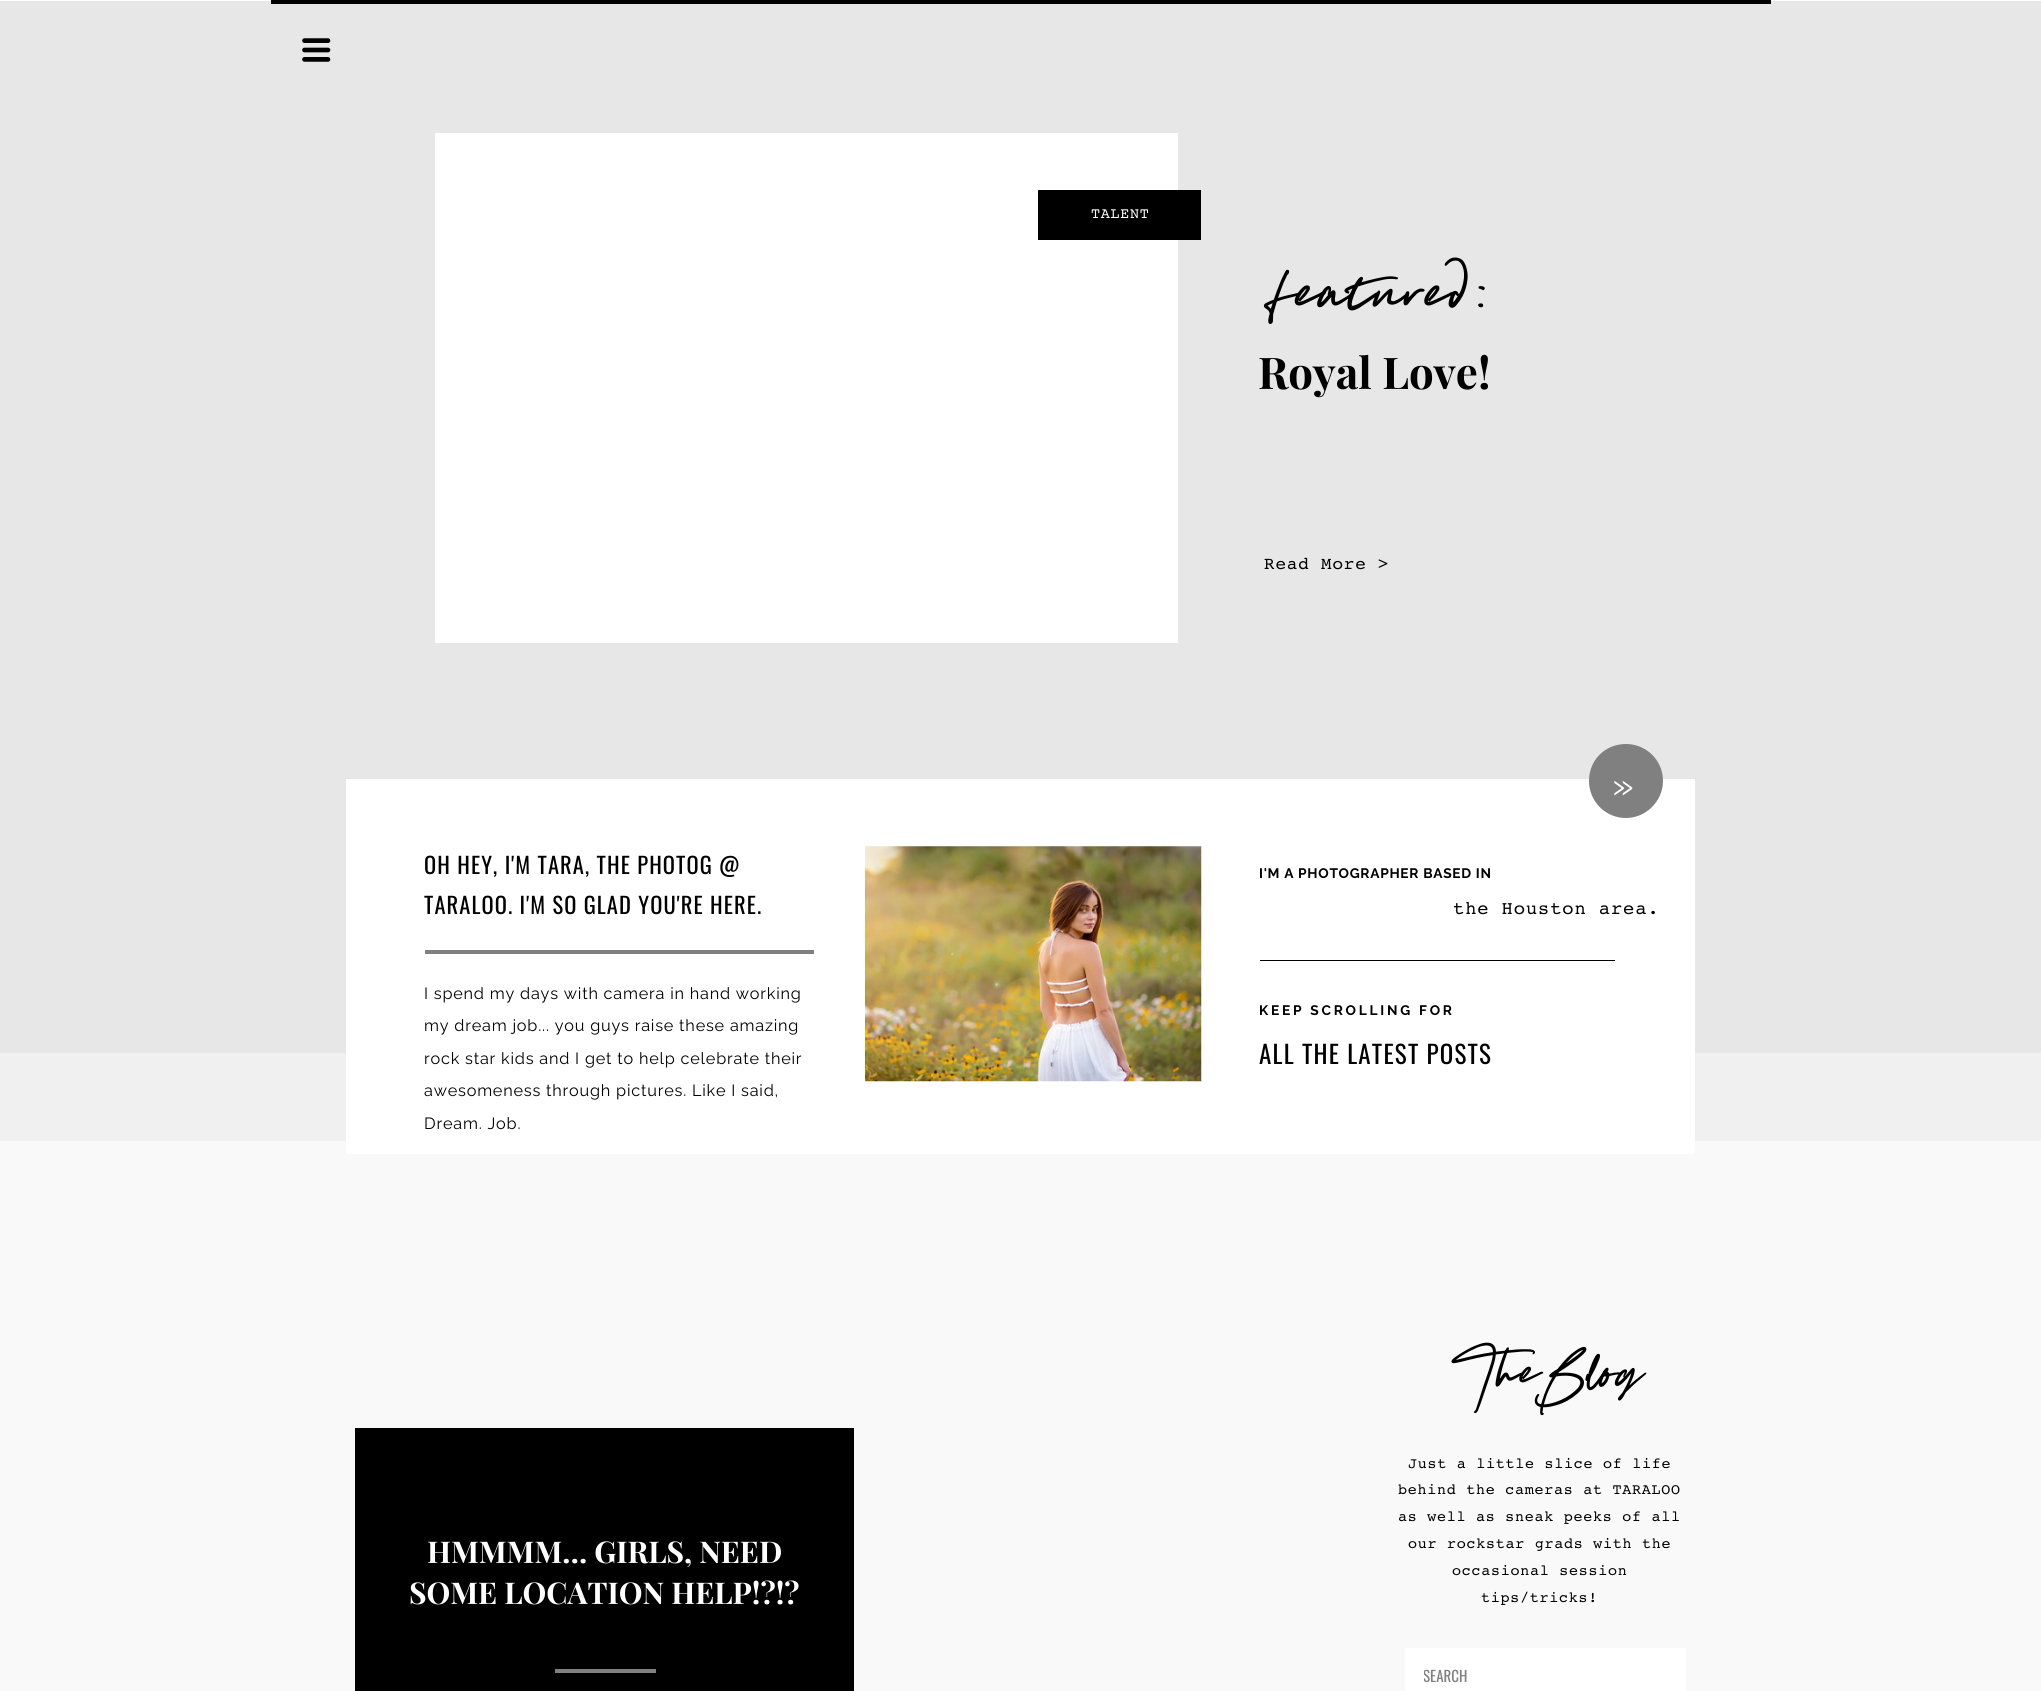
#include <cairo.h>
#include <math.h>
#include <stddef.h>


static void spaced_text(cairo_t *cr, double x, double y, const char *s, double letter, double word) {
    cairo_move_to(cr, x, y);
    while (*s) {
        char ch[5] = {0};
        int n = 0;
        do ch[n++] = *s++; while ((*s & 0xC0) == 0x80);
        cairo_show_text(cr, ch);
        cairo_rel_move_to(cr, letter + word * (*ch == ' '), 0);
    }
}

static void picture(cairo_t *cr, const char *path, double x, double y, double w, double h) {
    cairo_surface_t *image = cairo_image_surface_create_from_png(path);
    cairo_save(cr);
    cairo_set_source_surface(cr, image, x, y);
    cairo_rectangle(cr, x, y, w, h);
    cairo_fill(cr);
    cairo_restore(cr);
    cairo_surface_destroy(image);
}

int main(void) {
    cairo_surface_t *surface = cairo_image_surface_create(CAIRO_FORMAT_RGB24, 2041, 1691);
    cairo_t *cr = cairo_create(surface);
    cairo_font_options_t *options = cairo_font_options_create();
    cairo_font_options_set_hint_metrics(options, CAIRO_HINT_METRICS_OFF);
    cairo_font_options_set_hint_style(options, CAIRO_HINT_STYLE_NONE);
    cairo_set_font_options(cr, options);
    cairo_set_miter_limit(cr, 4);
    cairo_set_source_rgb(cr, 1, 1, 1);
    cairo_paint(cr);
    cairo_set_source_rgb(cr, 0.906, 0.906, 0.906);
    cairo_rectangle(cr, 0, 1, 2041, 1052);
    cairo_fill(cr);
    cairo_set_source_rgb(cr, 0, 0, 0);
    cairo_rectangle(cr, 271, 0, 1500, 4);
    cairo_fill(cr);
    picture(cr, "img1.png", 302, 38, 29, 24);
    cairo_set_source_rgb(cr, 1, 1, 1);
    cairo_rectangle(cr, 435, 133, 743, 510);
    cairo_fill(cr);
    cairo_set_source_rgb(cr, 0, 0, 0);
    cairo_rectangle(cr, 1038, 190, 163, 50);
    cairo_fill(cr);
    cairo_select_font_face(cr, "Courier", CAIRO_FONT_SLANT_NORMAL, CAIRO_FONT_WEIGHT_NORMAL);
    cairo_set_font_size(cr, 15);
    cairo_set_source_rgb(cr, 1, 1, 1);
    spaced_text(cr, 1091, 218, "TALENT", 0.75, 0);
    cairo_select_font_face(cr, "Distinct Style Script", CAIRO_FONT_SLANT_NORMAL, CAIRO_FONT_WEIGHT_NORMAL);
    cairo_set_font_size(cr, 112);
    cairo_set_source_rgb(cr, 0, 0, 0);
    cairo_move_to(cr, 1278, 328);
    cairo_show_text(cr, "featured:");
    cairo_select_font_face(cr, "Playfair Display", CAIRO_FONT_SLANT_NORMAL, CAIRO_FONT_WEIGHT_BOLD);
    cairo_set_font_size(cr, 43.75);
    cairo_move_to(cr, 1258, 389);
    cairo_show_text(cr, "Royal Love!");
    cairo_select_font_face(cr, "Courier", CAIRO_FONT_SLANT_NORMAL, CAIRO_FONT_WEIGHT_NORMAL);
    cairo_set_font_size(cr, 17.5);
    spaced_text(cr, 1264, 569, "Read More >", 0.9, 0);
    cairo_set_source_rgb(cr, 0.941, 0.941, 0.941);
    cairo_rectangle(cr, 0, 1053, 2041, 88);
    cairo_fill(cr);
    cairo_set_source_rgb(cr, 0.973, 0.973, 0.973);
    cairo_rectangle(cr, 0, 1141, 2041, 550);
    cairo_fill(cr);
    cairo_set_source_rgb(cr, 1, 1, 1);
    cairo_rectangle(cr, 346, 779, 1349, 375);
    cairo_fill(cr);
    cairo_set_source_rgb(cr, 0.502, 0.502, 0.502);
    cairo_new_path(cr);
    cairo_move_to(cr, 1626, 818);
    cairo_curve_to(cr, 1646, 818, 1663, 801, 1663, 781);
    cairo_curve_to(cr, 1663, 760, 1646, 744, 1626, 744);
    cairo_curve_to(cr, 1605, 744, 1589, 760, 1589, 781);
    cairo_curve_to(cr, 1589, 801, 1605, 818, 1626, 818);
    cairo_close_path(cr);
    cairo_fill(cr);
    cairo_select_font_face(cr, "Raleway", CAIRO_FONT_SLANT_NORMAL, CAIRO_FONT_WEIGHT_NORMAL);
    cairo_set_font_size(cr, 38);
    cairo_set_source_rgb(cr, 1, 1, 1);
    spaced_text(cr, 1612, 798, "»", 2, 0);
    cairo_select_font_face(cr, "Oswald", CAIRO_FONT_SLANT_NORMAL, CAIRO_FONT_WEIGHT_NORMAL);
    cairo_set_font_size(cr, 22.5);
    cairo_set_source_rgb(cr, 0, 0, 0);
    spaced_text(cr, 424, 874, "OH HEY, I'M TARA, THE PHOTOG @", 1.1, 0);
    spaced_text(cr, 424, 914, "TARALOO. I'M SO GLAD YOU'RE HERE.", 1.1, 0);
    picture(cr, "img2.png", 865, 846, 337, 236);
    cairo_select_font_face(cr, "Raleway", CAIRO_FONT_SLANT_NORMAL, CAIRO_FONT_WEIGHT_BOLD);
    cairo_set_font_size(cr, 13.75);
    spaced_text(cr, 1259, 878, "I'M A PHOTOGRAPHER BASED IN", 0.7, 0);
    cairo_select_font_face(cr, "Courier", CAIRO_FONT_SLANT_NORMAL, CAIRO_FONT_WEIGHT_NORMAL);
    cairo_set_font_size(cr, 18.75);
    spaced_text(cr, 1453, 914, "the Houston area.", 0.9, 0);
    cairo_set_source_rgb(cr, 0.502, 0.502, 0.502);
    cairo_rectangle(cr, 425, 950, 389, 4);
    cairo_fill(cr);
    cairo_set_source_rgb(cr, 0, 0, 0);
    cairo_rectangle(cr, 1260, 960, 355, 1);
    cairo_fill(cr);
    cairo_select_font_face(cr, "Raleway", CAIRO_FONT_SLANT_NORMAL, CAIRO_FONT_WEIGHT_NORMAL);
    cairo_set_font_size(cr, 16.25);
    spaced_text(cr, 424, 999, "I spend my days with camera in hand working", 0.8, 0);
    spaced_text(cr, 424, 1031, "my dream job... you guys raise these amazing", 0.8, 0);
    spaced_text(cr, 424, 1064, "rock star kids and I get to help celebrate their", 0.8, 0);
    spaced_text(cr, 424, 1096, "awesomeness through pictures. Like I said,", 0.8, 0);
    spaced_text(cr, 424, 1129, "Dream. Job.", 0.8, 0);
    cairo_select_font_face(cr, "Raleway", CAIRO_FONT_SLANT_NORMAL, CAIRO_FONT_WEIGHT_BOLD);
    cairo_set_font_size(cr, 13.75);
    spaced_text(cr, 1259, 1015, "KEEP SCROLLING FOR", 2.75, 0);
    cairo_select_font_face(cr, "Oswald", CAIRO_FONT_SLANT_NORMAL, CAIRO_FONT_WEIGHT_NORMAL);
    cairo_set_font_size(cr, 25);
    spaced_text(cr, 1259, 1064, "ALL THE LATEST POSTS", 1.25, 0);
    cairo_rectangle(cr, 355, 1428, 499, 263);
    cairo_fill(cr);
    cairo_select_font_face(cr, "Playfair Display", CAIRO_FONT_SLANT_NORMAL, CAIRO_FONT_WEIGHT_BOLD);
    cairo_set_font_size(cr, 30);
    cairo_set_source_rgb(cr, 1, 1, 1);
    cairo_move_to(cr, 427, 1563);
    cairo_show_text(cr, "HMMMM… GIRLS, NEED");
    cairo_move_to(cr, 409, 1604);
    cairo_show_text(cr, "SOME LOCATION HELP!?!?");
    cairo_set_source_rgb(cr, 0.502, 0.502, 0.502);
    cairo_rectangle(cr, 555, 1669, 101, 4);
    cairo_fill(cr);
    cairo_select_font_face(cr, "Distinct Style Script", CAIRO_FONT_SLANT_NORMAL, CAIRO_FONT_WEIGHT_NORMAL);
    cairo_set_font_size(cr, 87.5);
    cairo_set_source_rgb(cr, 0, 0, 0);
    cairo_move_to(cr, 1465, 1400);
    cairo_show_text(cr, "TheBlog");
    cairo_select_font_face(cr, "Courier", CAIRO_FONT_SLANT_NORMAL, CAIRO_FONT_WEIGHT_NORMAL);
    cairo_set_font_size(cr, 15);
    spaced_text(cr, 1408, 1468, "Just a little slice of life", 0.75, 0);
    spaced_text(cr, 1398, 1494, "behind the cameras at TARALOO", 0.75, 0);
    spaced_text(cr, 1398, 1521, "as well as sneak peeks of all", 0.75, 0);
    spaced_text(cr, 1408, 1548, "our rockstar grads with the", 0.75, 0);
    spaced_text(cr, 1452, 1575, "occasional session", 0.75, 0);
    spaced_text(cr, 1481, 1602, "tips/tricks!", 0.75, 0);
    cairo_set_source_rgb(cr, 1, 1, 1);
    cairo_rectangle(cr, 1405, 1648, 281, 43);
    cairo_fill(cr);
    cairo_save(cr);
    cairo_rectangle(cr, 1424, 1665, 222, 20);
    cairo_clip(cr);
    cairo_select_font_face(cr, "Oswald", CAIRO_FONT_SLANT_NORMAL, CAIRO_FONT_WEIGHT_NORMAL);
    cairo_set_source_rgb(cr, 0.502, 0.502, 0.502);
    cairo_move_to(cr, 1423, 1682);
    cairo_show_text(cr, "SEARCH");
    cairo_restore(cr);
    cairo_surface_write_to_png(surface, "page.png");
    cairo_font_options_destroy(options);
    cairo_destroy(cr);
    cairo_surface_destroy(surface);
    return 0;
}
